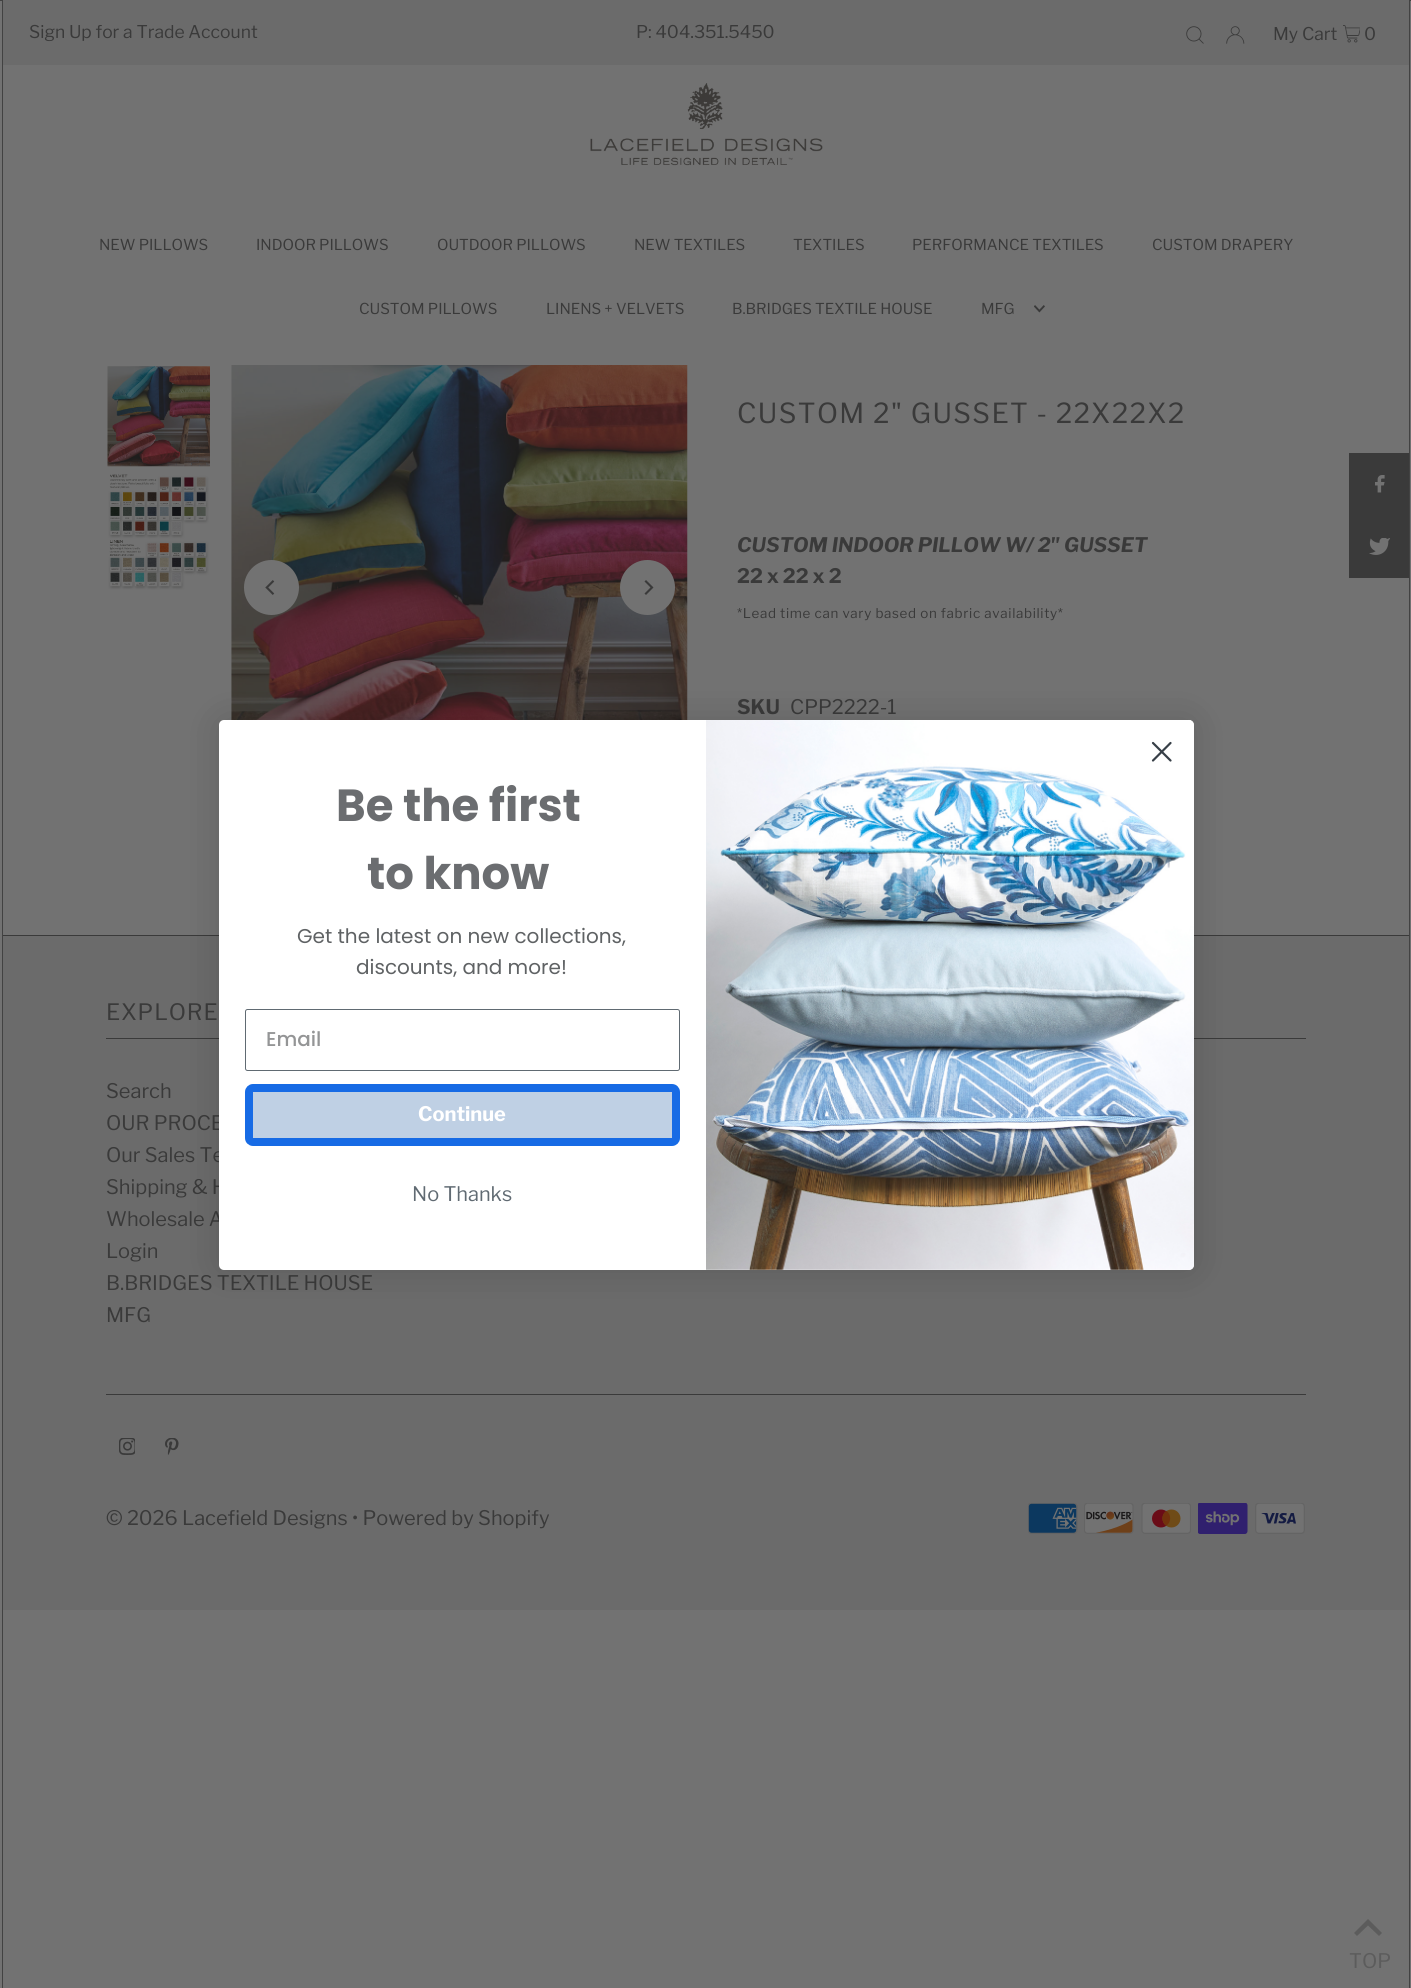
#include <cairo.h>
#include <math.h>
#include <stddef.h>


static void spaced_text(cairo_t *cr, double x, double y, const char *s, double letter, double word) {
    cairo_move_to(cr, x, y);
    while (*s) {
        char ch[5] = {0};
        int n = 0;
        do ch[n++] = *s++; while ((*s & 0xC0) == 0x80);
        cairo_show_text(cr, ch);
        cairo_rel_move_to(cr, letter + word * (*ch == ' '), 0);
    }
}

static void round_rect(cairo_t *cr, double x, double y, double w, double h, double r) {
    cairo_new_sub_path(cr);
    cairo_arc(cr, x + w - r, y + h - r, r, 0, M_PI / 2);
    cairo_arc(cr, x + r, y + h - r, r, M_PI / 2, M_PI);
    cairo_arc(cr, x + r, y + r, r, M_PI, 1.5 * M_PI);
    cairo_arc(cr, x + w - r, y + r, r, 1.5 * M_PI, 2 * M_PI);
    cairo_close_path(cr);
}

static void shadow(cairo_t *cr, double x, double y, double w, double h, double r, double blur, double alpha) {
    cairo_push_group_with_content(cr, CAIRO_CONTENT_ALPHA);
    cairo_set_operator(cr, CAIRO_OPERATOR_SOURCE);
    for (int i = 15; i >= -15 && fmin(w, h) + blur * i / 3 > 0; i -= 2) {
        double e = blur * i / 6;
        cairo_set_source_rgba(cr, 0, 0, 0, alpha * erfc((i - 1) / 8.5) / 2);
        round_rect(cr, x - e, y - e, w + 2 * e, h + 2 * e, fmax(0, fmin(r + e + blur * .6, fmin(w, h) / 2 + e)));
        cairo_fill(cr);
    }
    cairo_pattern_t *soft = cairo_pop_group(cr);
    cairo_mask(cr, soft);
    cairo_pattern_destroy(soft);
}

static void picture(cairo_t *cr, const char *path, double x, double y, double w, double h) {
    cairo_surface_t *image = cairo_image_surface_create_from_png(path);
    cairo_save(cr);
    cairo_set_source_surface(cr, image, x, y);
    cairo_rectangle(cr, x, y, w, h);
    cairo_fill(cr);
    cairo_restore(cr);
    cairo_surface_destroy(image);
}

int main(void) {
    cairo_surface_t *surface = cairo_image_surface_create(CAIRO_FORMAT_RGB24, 1411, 1988);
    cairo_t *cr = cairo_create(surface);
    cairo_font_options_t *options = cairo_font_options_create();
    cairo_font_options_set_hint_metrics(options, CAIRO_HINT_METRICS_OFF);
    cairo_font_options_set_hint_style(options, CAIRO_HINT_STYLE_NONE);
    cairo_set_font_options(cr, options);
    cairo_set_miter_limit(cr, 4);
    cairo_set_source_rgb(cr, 0.447, 0.447, 0.447);
    cairo_paint(cr);
    cairo_set_source_rgb(cr, 0.227, 0.227, 0.227);
    cairo_rectangle(cr, 0, 935, 1411, 1);
    cairo_fill(cr);
    cairo_set_source_rgb(cr, 0.447, 0.447, 0.447);
    cairo_rectangle(cr, 0, 935, 2, 1);
    cairo_fill(cr);
    cairo_rectangle(cr, -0.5, 0.5, 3, 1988);
    cairo_set_source_rgb(cr, 0.259, 0.259, 0.259);
    cairo_set_line_width(cr, 1);
    cairo_stroke(cr);
    cairo_set_source_rgb(cr, 0.42, 0.42, 0.42);
    cairo_rectangle(cr, 3, 0, 1406, 65);
    cairo_fill(cr);
    cairo_select_font_face(cr, "Libre Franklin", CAIRO_FONT_SLANT_NORMAL, CAIRO_FONT_WEIGHT_NORMAL);
    cairo_set_font_size(cr, 17.5);
    cairo_set_source_rgb(cr, 0.227, 0.227, 0.227);
    cairo_move_to(cr, 29, 38);
    cairo_show_text(cr, "Sign Up for a Trade Account");
    cairo_move_to(cr, 636, 38);
    cairo_show_text(cr, "P: 404.351.5450");
    picture(cr, "img1.png", 1186, 26, 18, 18);
    picture(cr, "img2.png", 1226, 26, 19, 18);
    cairo_move_to(cr, 1273, 40);
    cairo_show_text(cr, "My Cart");
    picture(cr, "img3.png", 1343, 25, 17, 18);
    cairo_move_to(cr, 1364, 40);
    cairo_show_text(cr, "0");
    picture(cr, "img4.png", 590, 83, 233, 83);
    cairo_set_font_size(cr, 15);
    cairo_move_to(cr, 99, 250);
    cairo_show_text(cr, "NEW PILLOWS");
    cairo_move_to(cr, 256, 250);
    cairo_show_text(cr, "INDOOR PILLOWS");
    cairo_move_to(cr, 437, 250);
    cairo_show_text(cr, "OUTDOOR PILLOWS");
    cairo_move_to(cr, 634, 250);
    cairo_show_text(cr, "NEW TEXTILES");
    cairo_move_to(cr, 793, 250);
    cairo_show_text(cr, "TEXTILES");
    cairo_move_to(cr, 912, 250);
    cairo_show_text(cr, "PERFORMANCE TEXTILES");
    cairo_move_to(cr, 1152, 250);
    cairo_show_text(cr, "CUSTOM DRAPERY");
    cairo_move_to(cr, 359, 314);
    cairo_show_text(cr, "CUSTOM PILLOWS");
    cairo_move_to(cr, 546, 314);
    cairo_show_text(cr, "LINENS + VELVETS");
    cairo_move_to(cr, 732, 314);
    cairo_show_text(cr, "B.BRIDGES TEXTILE HOUSE");
    cairo_move_to(cr, 981, 314);
    cairo_show_text(cr, "MFG");
    picture(cr, "img5.png", 1034, 305, 11, 8);
    picture(cr, "img6.png", 107, 366, 103, 101);
    picture(cr, "img7.png", 108, 474, 101, 116);
    picture(cr, "img8.png", 231, 365, 457, 355);
    cairo_set_source_rgb(cr, 0.447, 0.447, 0.447);
    cairo_arc(cr, 271.5, 587.5, 27.5, 0, 2 * M_PI);
    cairo_fill(cr);
    picture(cr, "img9.png", 265, 580, 10, 15);
    cairo_arc(cr, 647.5, 587.5, 27.5, 0, 2 * M_PI);
    cairo_fill(cr);
    picture(cr, "img10.png", 644, 580, 10, 15);
    cairo_set_font_size(cr, 27.5);
    cairo_set_source_rgb(cr, 0.227, 0.227, 0.227);
    spaced_text(cr, 737, 423, "CUSTOM 2\" GUSSET - 22X22X2", 1.4, 0);
    cairo_select_font_face(cr, "Libre Franklin", CAIRO_FONT_SLANT_ITALIC, CAIRO_FONT_WEIGHT_BOLD);
    cairo_set_font_size(cr, 20);
    cairo_move_to(cr, 737, 552);
    cairo_show_text(cr, "CUSTOM INDOOR PILLOW W/ 2\" GUSSET");
    cairo_select_font_face(cr, "Libre Franklin", CAIRO_FONT_SLANT_NORMAL, CAIRO_FONT_WEIGHT_BOLD);
    cairo_move_to(cr, 737, 583);
    cairo_show_text(cr, "22 x 22 x 2");
    cairo_select_font_face(cr, "Libre Franklin", CAIRO_FONT_SLANT_NORMAL, CAIRO_FONT_WEIGHT_NORMAL);
    cairo_set_font_size(cr, 13.4);
    spaced_text(cr, 737, 618, "*Lead time can vary based on fabric availability*", 0.65, 0);
    cairo_select_font_face(cr, "Libre Franklin", CAIRO_FONT_SLANT_NORMAL, CAIRO_FONT_WEIGHT_BOLD);
    cairo_set_font_size(cr, 20);
    cairo_move_to(cr, 737, 714);
    cairo_show_text(cr, "SKU");
    cairo_select_font_face(cr, "Libre Franklin", CAIRO_FONT_SLANT_NORMAL, CAIRO_FONT_WEIGHT_NORMAL);
    cairo_move_to(cr, 790, 714);
    cairo_show_text(cr, "CPP2222-1");
    cairo_rectangle(cr, 1349, 453, 60, 125);
    cairo_fill(cr);
    picture(cr, "img11.png", 1375, 475, 10, 18);
    picture(cr, "img12.png", 1369, 538, 21, 17);
    cairo_set_source_rgb(cr, 0.42, 0.42, 0.42);
    cairo_rectangle(cr, 3, 936, 1406, 674);
    cairo_fill(cr);
    cairo_set_source_rgb(cr, 0.227, 0.227, 0.227);
    cairo_rectangle(cr, 106, 1038, 113, 1);
    cairo_fill(cr);
    cairo_set_font_size(cr, 22.5);
    spaced_text(cr, 106, 1020, "EXPLORE", 1, 0);
    cairo_set_font_size(cr, 20);
    cairo_move_to(cr, 106, 1098);
    cairo_show_text(cr, "Search");
    cairo_move_to(cr, 106, 1130);
    cairo_show_text(cr, "OUR PROCE");
    cairo_move_to(cr, 106, 1162);
    cairo_show_text(cr, "Our Sales Te");
    cairo_move_to(cr, 106, 1194);
    cairo_show_text(cr, "Shipping & H");
    cairo_move_to(cr, 106, 1226);
    cairo_show_text(cr, "Wholesale A");
    cairo_move_to(cr, 106, 1258);
    cairo_show_text(cr, "Login");
    cairo_move_to(cr, 106, 1290);
    cairo_show_text(cr, "B.BRIDGES TEXTILE HOUSE");
    cairo_move_to(cr, 106, 1322);
    cairo_show_text(cr, "MFG");
    cairo_rectangle(cr, 1194, 1038, 112, 1);
    cairo_fill(cr);
    cairo_rectangle(cr, 106, 1394, 1200, 1);
    cairo_fill(cr);
    picture(cr, "img13.png", 119, 1438, 16, 17);
    picture(cr, "img14.png", 165, 1438, 14, 17);
    cairo_move_to(cr, 106, 1525);
    cairo_show_text(cr, "© 2026 Lacefield Designs • Powered by Shopify");
    picture(cr, "img15.png", 1028, 1503, 50, 31);
    picture(cr, "img16.png", 1084, 1503, 50, 31);
    picture(cr, "img17.png", 1141, 1503, 50, 31);
    picture(cr, "img18.png", 1198, 1503, 50, 31);
    picture(cr, "img19.png", 1255, 1503, 50, 31);
    cairo_set_source_rgb(cr, 0.447, 0.447, 0.447);
    cairo_rectangle(cr, 1410, 935, 1, 1);
    cairo_fill(cr);
    cairo_rectangle(cr, 1409.5, 0.5, 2, 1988);
    cairo_set_source_rgb(cr, 0.259, 0.259, 0.259);
    cairo_stroke(cr);
    cairo_set_source_rgb(cr, 0, 0, 0);
    shadow(cr, 219, 720, 975, 550, 5, 19, 0.15);
    cairo_set_source_rgb(cr, 1, 1, 1);
    round_rect(cr, 219, 720, 975, 550, 5);
    cairo_fill(cr);
    picture(cr, "img20.png", 706, 720, 488, 550);
    cairo_new_path(cr);
    cairo_move_to(cr, 1153, 743);
    cairo_line_to(cr, 1170.5, 760.5);
    cairo_move_to(cr, 1153, 760.5);
    cairo_line_to(cr, 1170.5, 743);
    cairo_close_path(cr);
    cairo_set_source_rgb(cr, 0.216, 0.247, 0.278);
    cairo_set_line_width(cr, 2.2);
    cairo_set_line_cap(cr, CAIRO_LINE_CAP_ROUND);
    cairo_set_line_join(cr, CAIRO_LINE_JOIN_ROUND);
    cairo_stroke(cr);
    cairo_select_font_face(cr, "Poppins", CAIRO_FONT_SLANT_NORMAL, CAIRO_FONT_WEIGHT_BOLD);
    cairo_set_font_size(cr, 45);
    cairo_set_source_rgb(cr, 0.42, 0.427, 0.439);
    cairo_move_to(cr, 336, 821);
    cairo_show_text(cr, "Be the first");
    cairo_move_to(cr, 367, 889);
    cairo_show_text(cr, "to know");
    cairo_select_font_face(cr, "Poppins", CAIRO_FONT_SLANT_NORMAL, CAIRO_FONT_WEIGHT_NORMAL);
    cairo_set_font_size(cr, 20);
    cairo_set_source_rgb(cr, 0.373, 0.384, 0.392);
    cairo_move_to(cr, 297, 943);
    cairo_show_text(cr, "Get the latest on new collections,");
    cairo_move_to(cr, 356, 974);
    cairo_show_text(cr, "discounts, and more!");
    round_rect(cr, 245.5, 1009.5, 434, 61, 2);
    cairo_set_source_rgb(cr, 0.376, 0.416, 0.447);
    cairo_set_line_width(cr, 1);
    cairo_set_line_cap(cr, CAIRO_LINE_CAP_BUTT);
    cairo_set_line_join(cr, CAIRO_LINE_JOIN_MITER);
    cairo_stroke(cr);
    cairo_select_font_face(cr, "Poppins Medium", CAIRO_FONT_SLANT_NORMAL, CAIRO_FONT_WEIGHT_NORMAL);
    cairo_set_source_rgb(cr, 0.58, 0.584, 0.588);
    cairo_move_to(cr, 266, 1046);
    cairo_show_text(cr, "Email");
    cairo_set_source_rgb(cr, 0.749, 0.816, 0.894);
    round_rect(cr, 249, 1088, 427, 54, 4);
    cairo_fill_preserve(cr);
    cairo_set_source_rgb(cr, 0.09, 0.42, 0.898);
    cairo_set_line_width(cr, 8);
    cairo_stroke(cr);
    cairo_select_font_face(cr, "Libre Franklin", CAIRO_FONT_SLANT_NORMAL, CAIRO_FONT_WEIGHT_BOLD);
    cairo_set_source_rgb(cr, 1, 1, 1);
    cairo_move_to(cr, 418, 1121);
    cairo_show_text(cr, "Continue");
    cairo_select_font_face(cr, "Libre Franklin", CAIRO_FONT_SLANT_NORMAL, CAIRO_FONT_WEIGHT_NORMAL);
    cairo_set_source_rgb(cr, 0.376, 0.416, 0.447);
    cairo_move_to(cr, 412, 1201);
    cairo_show_text(cr, "No Thanks");
    cairo_set_source_rgb(cr, 0.361, 0.361, 0.361);
    cairo_new_path(cr);
    cairo_move_to(cr, 1368, 1919);
    cairo_line_to(cr, 1354, 1933);
    cairo_line_to(cr, 1357, 1936);
    cairo_line_to(cr, 1368, 1925.5);
    cairo_line_to(cr, 1379, 1936);
    cairo_line_to(cr, 1382, 1933);
    cairo_close_path(cr);
    cairo_fill(cr);
    cairo_move_to(cr, 1349, 1968);
    cairo_show_text(cr, "TOP");
    cairo_surface_write_to_png(surface, "page.png");
    cairo_font_options_destroy(options);
    cairo_destroy(cr);
    cairo_surface_destroy(surface);
    return 0;
}
